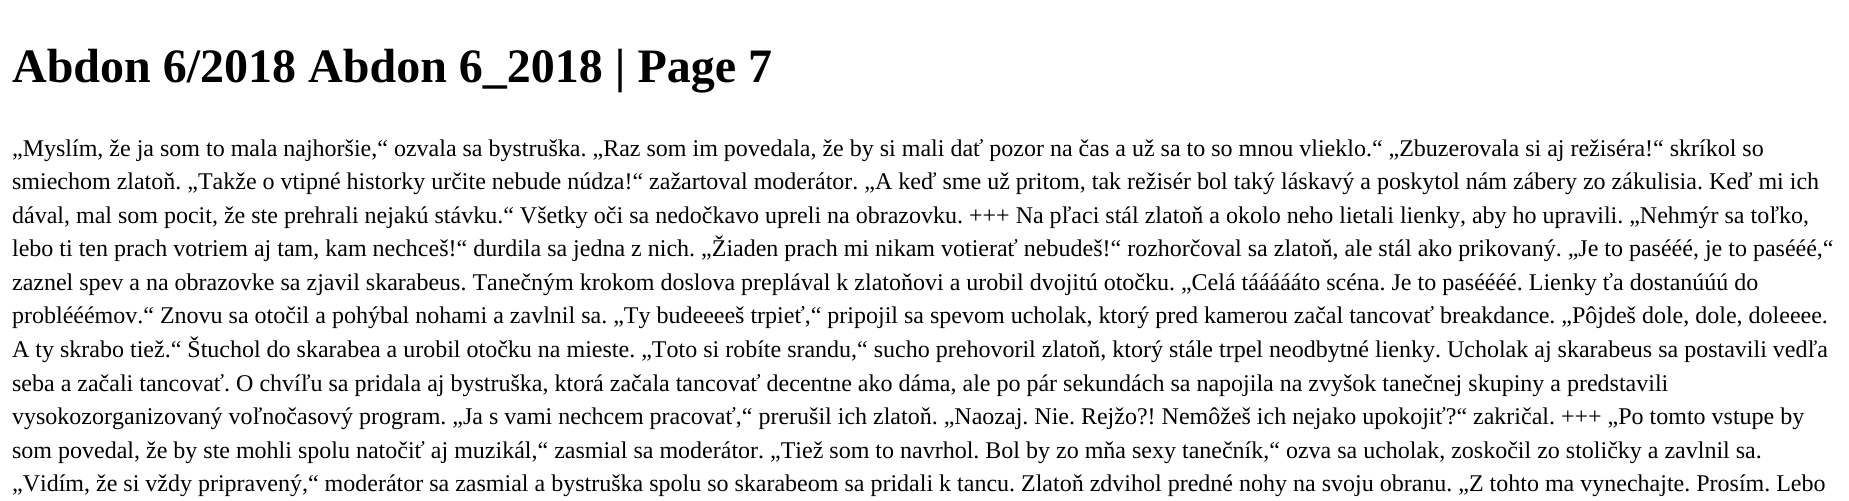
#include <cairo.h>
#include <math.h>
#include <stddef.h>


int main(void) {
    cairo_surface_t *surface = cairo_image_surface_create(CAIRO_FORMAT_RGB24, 1849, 501);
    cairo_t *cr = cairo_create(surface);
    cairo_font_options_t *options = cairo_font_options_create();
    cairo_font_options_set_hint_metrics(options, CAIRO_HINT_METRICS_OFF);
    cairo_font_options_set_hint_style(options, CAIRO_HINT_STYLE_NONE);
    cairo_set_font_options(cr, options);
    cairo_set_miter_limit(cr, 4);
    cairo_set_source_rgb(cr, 1, 1, 1);
    cairo_paint(cr);
    cairo_select_font_face(cr, "Liberation Serif", CAIRO_FONT_SLANT_NORMAL, CAIRO_FONT_WEIGHT_BOLD);
    cairo_set_font_size(cr, 48);
    cairo_set_source_rgb(cr, 0, 0, 0);
    cairo_move_to(cr, 12, 82);
    cairo_show_text(cr, "Abdon 6/2018 Abdon 6_2018 | Page 7");
    cairo_select_font_face(cr, "Liberation Serif", CAIRO_FONT_SLANT_NORMAL, CAIRO_FONT_WEIGHT_NORMAL);
    cairo_set_font_size(cr, 24);
    cairo_move_to(cr, 12, 156);
    cairo_show_text(cr, "„Myslím, že ja som to mala najhoršie,“ ozvala sa bystruška. „Raz som im povedala, že by si mali dať pozor na čas a už sa to so mnou vlieklo.“ „Zbuzerovala si aj režiséra!“ skríkol so");
    cairo_move_to(cr, 12, 189);
    cairo_show_text(cr, "smiechom zlatoň. „Takže o vtipné historky určite nebude núdza!“ zažartoval moderátor. „A keď sme už pritom, tak režisér bol taký láskavý a poskytol nám zábery zo zákulisia. Keď mi ich");
    cairo_move_to(cr, 12, 223);
    cairo_show_text(cr, "dával, mal som pocit, že ste prehrali nejakú stávku.“ Všetky oči sa nedočkavo upreli na obrazovku. +++ Na pľaci stál zlatoň a okolo neho lietali lienky, aby ho upravili. „Nehmýr sa toľko,");
    cairo_move_to(cr, 12, 256);
    cairo_show_text(cr, "lebo ti ten prach votriem aj tam, kam nechceš!“ durdila sa jedna z nich. „Žiaden prach mi nikam votierať nebudeš!“ rozhorčoval sa zlatoň, ale stál ako prikovaný. „Je to pasééé, je to pasééé,“");
    cairo_move_to(cr, 12, 290);
    cairo_show_text(cr, "zaznel spev a na obrazovke sa zjavil skarabeus. Tanečným krokom doslova preplával k zlatoňovi a urobil dvojitú otočku. „Celá táááááto scéna. Je to paséééé. Lienky ťa dostanúúú do");
    cairo_move_to(cr, 12, 323);
    cairo_show_text(cr, "problééémov.“ Znovu sa otočil a pohýbal nohami a zavlnil sa. „Ty budeeeeš trpieť,“ pripojil sa spevom ucholak, ktorý pred kamerou začal tancovať breakdance. „Pôjdeš dole, dole, doleeee.");
    cairo_move_to(cr, 12, 357);
    cairo_show_text(cr, "A ty skrabo tiež.“ Štuchol do skarabea a urobil otočku na mieste. „Toto si robíte srandu,“ sucho prehovoril zlatoň, ktorý stále trpel neodbytné lienky. Ucholak aj skarabeus sa postavili vedľa");
    cairo_move_to(cr, 12, 391);
    cairo_show_text(cr, "seba a začali tancovať. O chvíľu sa pridala aj bystruška, ktorá začala tancovať decentne ako dáma, ale po pár sekundách sa napojila na zvyšok tanečnej skupiny a predstavili");
    cairo_move_to(cr, 12, 424);
    cairo_show_text(cr, "vysokozorganizovaný voľnočasový program. „Ja s vami nechcem pracovať,“ prerušil ich zlatoň. „Naozaj. Nie. Rejžo?! Nemôžeš ich nejako upokojiť?“ zakričal. +++ „Po tomto vstupe by");
    cairo_move_to(cr, 12, 458);
    cairo_show_text(cr, "som povedal, že by ste mohli spolu natočiť aj muzikál,“ zasmial sa moderátor. „Tiež som to navrhol. Bol by zo mňa sexy tanečník,“ ozva sa ucholak, zoskočil zo stoličky a zavlnil sa.");
    cairo_move_to(cr, 12, 491);
    cairo_show_text(cr, "„Vidím, že si vždy pripravený,“ moderátor sa zasmial a bystruška spolu so skarabeom sa pridali k tancu. Zlatoň zdvihol predné nohy na svoju obranu. „Z tohto ma vynechajte. Prosím. Lebo");
    cairo_surface_write_to_png(surface, "page.png");
    cairo_font_options_destroy(options);
    cairo_destroy(cr);
    cairo_surface_destroy(surface);
    return 0;
}
